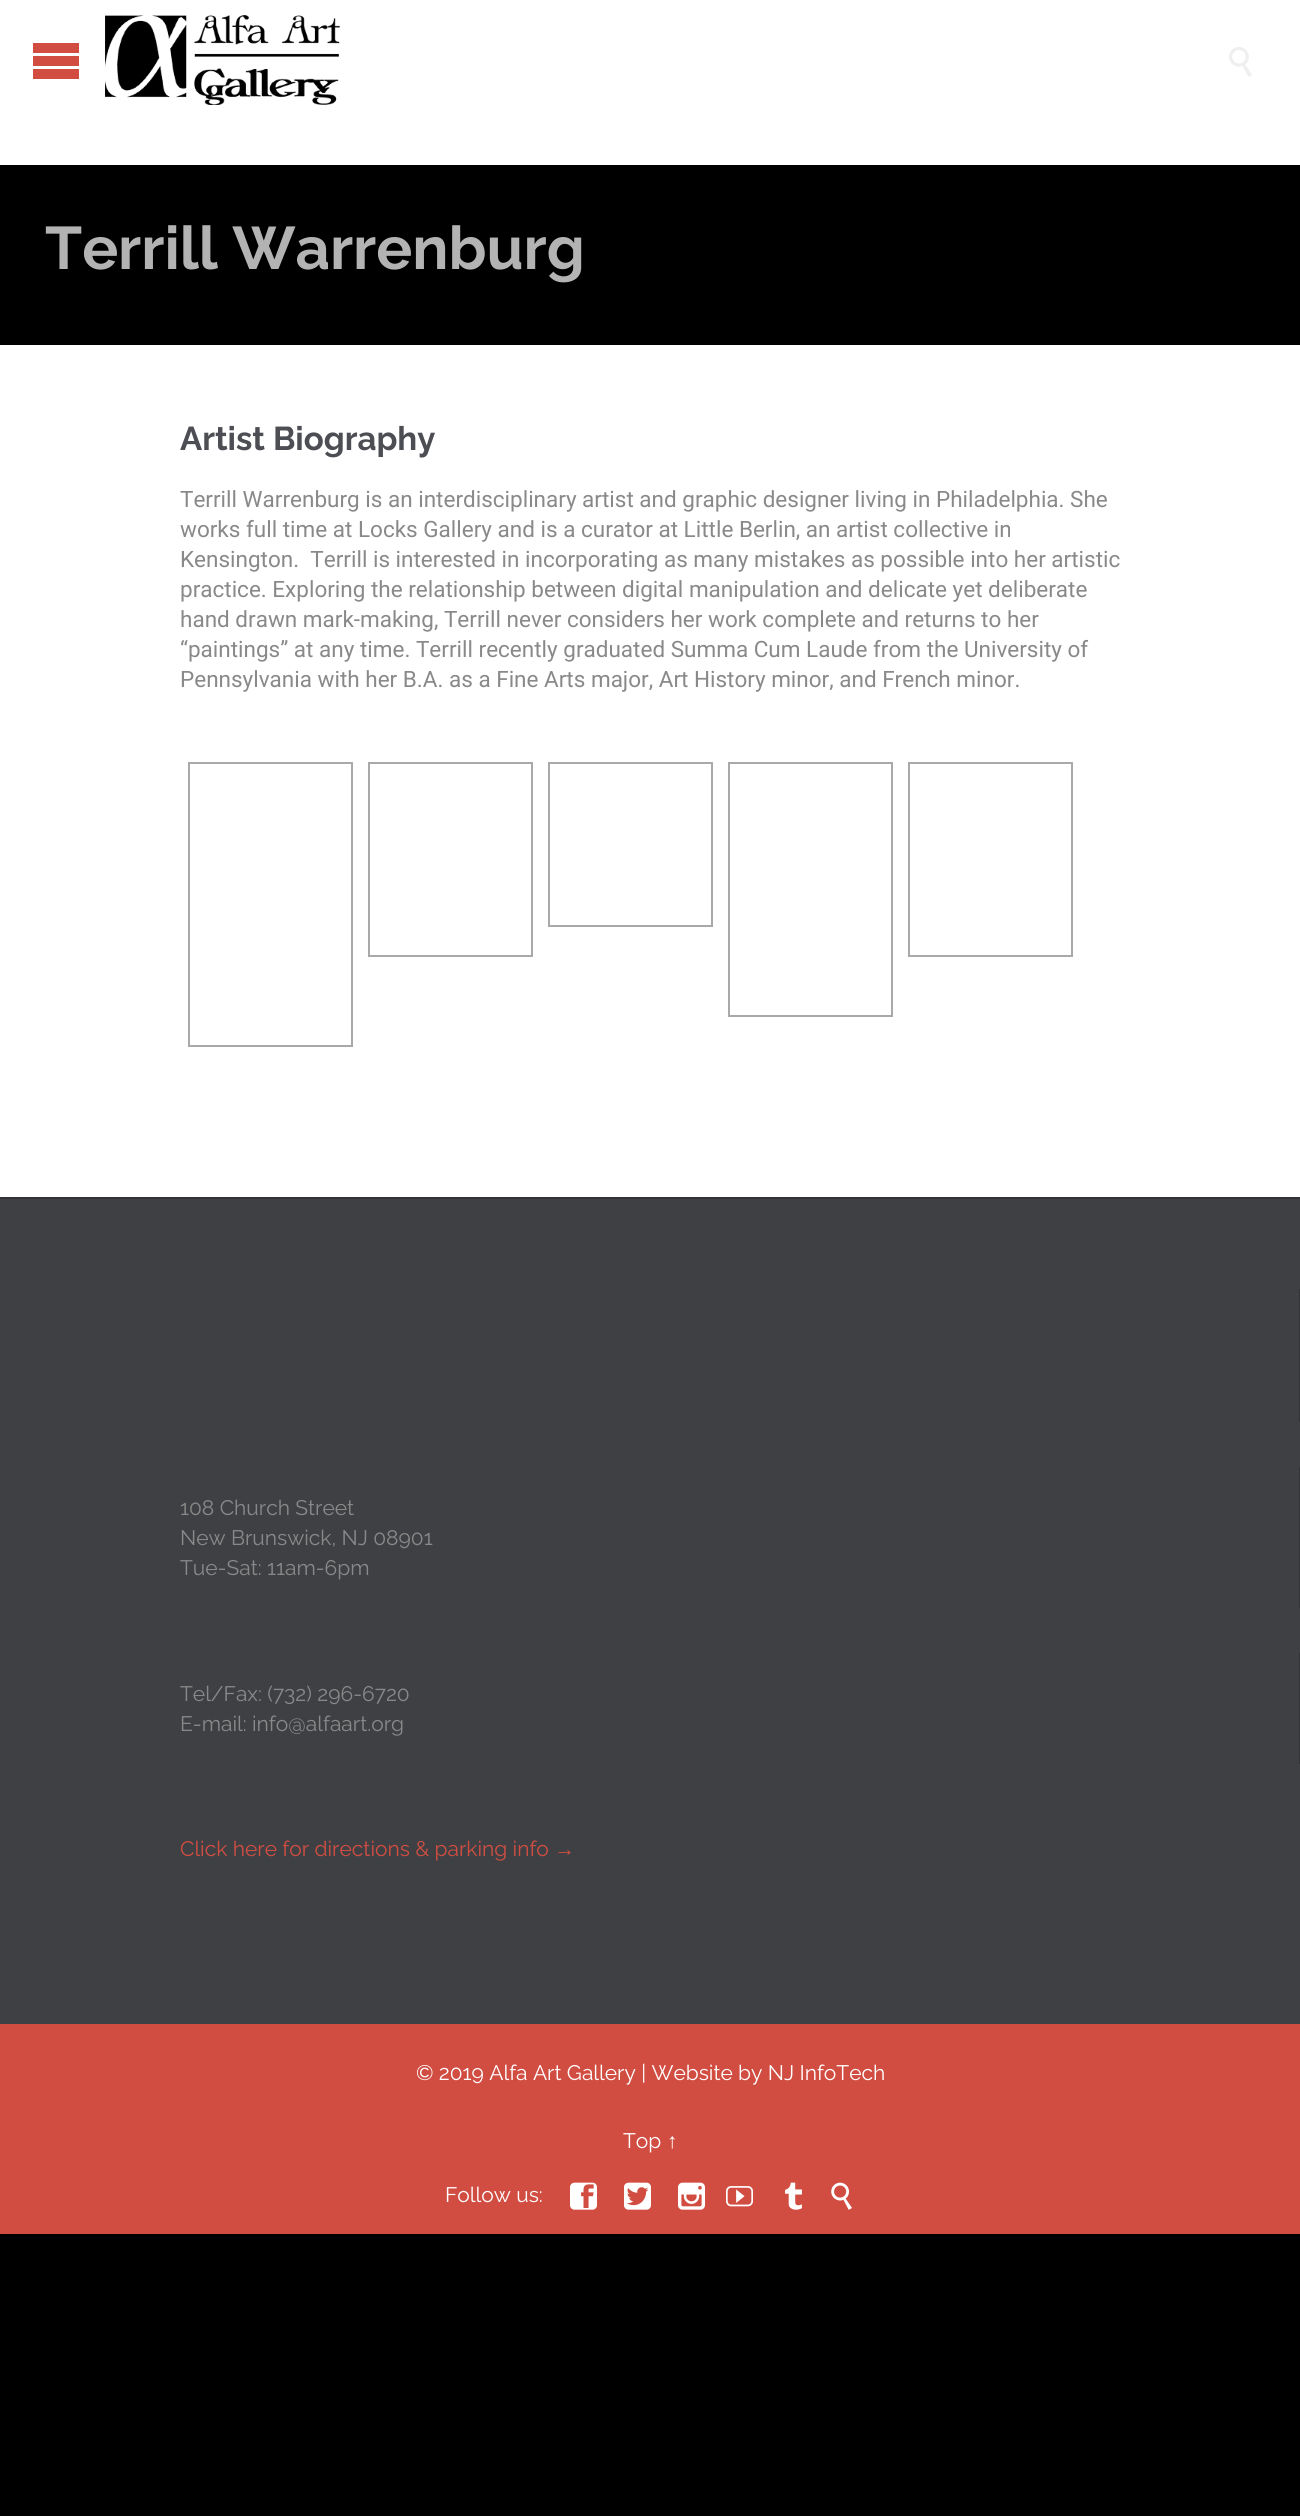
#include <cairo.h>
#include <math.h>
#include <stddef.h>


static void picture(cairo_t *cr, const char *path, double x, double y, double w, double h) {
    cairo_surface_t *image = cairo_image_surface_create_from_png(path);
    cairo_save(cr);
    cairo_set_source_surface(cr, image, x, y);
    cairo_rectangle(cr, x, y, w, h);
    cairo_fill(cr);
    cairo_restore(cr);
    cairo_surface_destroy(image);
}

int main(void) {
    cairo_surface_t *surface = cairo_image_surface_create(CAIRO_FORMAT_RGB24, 1300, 2516);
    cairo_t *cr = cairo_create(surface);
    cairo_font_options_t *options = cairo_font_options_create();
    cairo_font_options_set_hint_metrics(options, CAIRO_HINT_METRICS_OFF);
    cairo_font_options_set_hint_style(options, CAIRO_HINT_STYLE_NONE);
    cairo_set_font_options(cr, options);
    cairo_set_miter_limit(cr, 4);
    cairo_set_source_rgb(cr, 0, 0, 0);
    cairo_paint(cr);
    cairo_set_source_rgb(cr, 1, 1, 1);
    cairo_rectangle(cr, 0, 0, 1300, 165);
    cairo_fill(cr);
    cairo_set_source_rgb(cr, 0.82, 0.302, 0.259);
    cairo_new_path(cr);
    cairo_move_to(cr, 33, 43);
    cairo_line_to(cr, 79, 43);
    cairo_line_to(cr, 79, 53);
    cairo_line_to(cr, 33, 53);
    cairo_close_path(cr);
    cairo_move_to(cr, 33, 56);
    cairo_line_to(cr, 79, 56);
    cairo_line_to(cr, 79, 66);
    cairo_line_to(cr, 33, 66);
    cairo_close_path(cr);
    cairo_move_to(cr, 33, 69);
    cairo_line_to(cr, 79, 69);
    cairo_line_to(cr, 79, 79);
    cairo_line_to(cr, 33, 79);
    cairo_close_path(cr);
    cairo_fill(cr);
    picture(cr, "img1.png", 105, 15, 235, 90);
    picture(cr, "img2.png", 1229, 47, 23, 30);
    cairo_select_font_face(cr, "Raleway", CAIRO_FONT_SLANT_NORMAL, CAIRO_FONT_WEIGHT_BOLD);
    cairo_set_font_size(cr, 60);
    cairo_set_source_rgb(cr, 0.702, 0.702, 0.702);
    cairo_move_to(cr, 45, 269);
    cairo_show_text(cr, "Terrill Warrenburg");
    cairo_set_source_rgb(cr, 1, 1, 1);
    cairo_rectangle(cr, 0, 345, 1300, 852);
    cairo_fill(cr);
    cairo_set_font_size(cr, 33);
    cairo_set_source_rgb(cr, 0.302, 0.306, 0.325);
    cairo_move_to(cr, 180, 450);
    cairo_show_text(cr, "Artist Biography");
    cairo_select_font_face(cr, "Roboto", CAIRO_FONT_SLANT_NORMAL, CAIRO_FONT_WEIGHT_NORMAL);
    cairo_set_font_size(cr, 22.5);
    cairo_set_source_rgb(cr, 0.537, 0.537, 0.537);
    cairo_move_to(cr, 180, 507);
    cairo_show_text(cr, "Terrill Warrenburg is an interdisciplinary artist and graphic designer living in Philadelphia. She");
    cairo_move_to(cr, 180, 537);
    cairo_show_text(cr, "works full time at Locks Gallery and is a curator at Little Berlin, an artist collective in");
    cairo_move_to(cr, 180, 567);
    cairo_show_text(cr, "Kensington.  Terrill is interested in incorporating as many mistakes as possible into her artistic");
    cairo_move_to(cr, 180, 597);
    cairo_show_text(cr, "practice. Exploring the relationship between digital manipulation and delicate yet deliberate");
    cairo_move_to(cr, 180, 627);
    cairo_show_text(cr, "hand drawn mark-making, Terrill never considers her work complete and returns to her");
    cairo_move_to(cr, 180, 657);
    cairo_show_text(cr, "“paintings” at any time. Terrill recently graduated Summa Cum Laude from the University of");
    cairo_move_to(cr, 180, 687);
    cairo_show_text(cr, "Pennsylvania with her B.A. as a Fine Arts major, Art History minor, and French minor.");
    cairo_rectangle(cr, 189, 763, 163, 283);
    cairo_set_source_rgb(cr, 0.663, 0.663, 0.663);
    cairo_stroke(cr);
    cairo_rectangle(cr, 369, 763, 163, 193);
    cairo_stroke(cr);
    cairo_rectangle(cr, 549, 763, 163, 163);
    cairo_stroke(cr);
    cairo_rectangle(cr, 729, 763, 163, 253);
    cairo_stroke(cr);
    cairo_rectangle(cr, 909, 763, 163, 193);
    cairo_stroke(cr);
    cairo_set_source_rgb(cr, 0.243, 0.251, 0.263);
    cairo_rectangle(cr, 0, 1199, 1300, 825);
    cairo_fill(cr);
    cairo_set_source_rgb(cr, 0.196, 0.2, 0.212);
    cairo_rectangle(cr, 0, 1197, 1300, 2);
    cairo_fill(cr);
    cairo_rectangle(cr, 1299, 1289, 1, 133);
    cairo_fill(cr);
    cairo_rectangle(cr, 1299, 1467, 1, 141);
    cairo_fill(cr);
    cairo_select_font_face(cr, "Raleway", CAIRO_FONT_SLANT_NORMAL, CAIRO_FONT_WEIGHT_NORMAL);
    cairo_set_font_size(cr, 21);
    cairo_set_source_rgb(cr, 0.537, 0.537, 0.537);
    cairo_move_to(cr, 180, 1515);
    cairo_show_text(cr, "108 Church Street");
    cairo_move_to(cr, 180, 1545);
    cairo_show_text(cr, "New Brunswick, NJ 08901");
    cairo_move_to(cr, 180, 1575);
    cairo_show_text(cr, "Tue-Sat: 11am-6pm");
    cairo_set_source_rgb(cr, 0.196, 0.2, 0.212);
    cairo_rectangle(cr, 1299, 1653, 1, 111);
    cairo_fill(cr);
    cairo_set_source_rgb(cr, 0.537, 0.537, 0.537);
    cairo_move_to(cr, 180, 1701);
    cairo_show_text(cr, "Tel/Fax: (732) 296-6720");
    cairo_move_to(cr, 180, 1731);
    cairo_show_text(cr, "E-mail: info@alfaart.org");
    cairo_set_source_rgb(cr, 0.82, 0.302, 0.259);
    cairo_move_to(cr, 180, 1856);
    cairo_show_text(cr, "Click here for directions & parking info");
    cairo_select_font_face(cr, "Liberation Serif", CAIRO_FONT_SLANT_NORMAL, CAIRO_FONT_WEIGHT_NORMAL);
    cairo_move_to(cr, 554, 1856);
    cairo_show_text(cr, "→");
    cairo_rectangle(cr, 0, 2024, 1300, 210);
    cairo_fill(cr);
    cairo_select_font_face(cr, "Raleway", CAIRO_FONT_SLANT_NORMAL, CAIRO_FONT_WEIGHT_NORMAL);
    cairo_set_source_rgb(cr, 1, 1, 1);
    cairo_move_to(cr, 416, 2080);
    cairo_show_text(cr, "© 2019 Alfa Art Gallery | Website by NJ InfoTech");
    cairo_move_to(cr, 623, 2148);
    cairo_show_text(cr, "Top");
    cairo_select_font_face(cr, "Liberation Serif", CAIRO_FONT_SLANT_NORMAL, CAIRO_FONT_WEIGHT_NORMAL);
    cairo_move_to(cr, 667, 2148);
    cairo_show_text(cr, "↑");
    cairo_select_font_face(cr, "Raleway", CAIRO_FONT_SLANT_NORMAL, CAIRO_FONT_WEIGHT_NORMAL);
    cairo_move_to(cr, 445, 2202);
    cairo_show_text(cr, "Follow us:");
    picture(cr, "img3.png", 570, 2182, 27, 28);
    picture(cr, "img4.png", 624, 2182, 27, 28);
    picture(cr, "img5.png", 678, 2182, 27, 28);
    picture(cr, "img6.png", 726, 2186, 27, 21);
    picture(cr, "img7.png", 785, 2182, 17, 28);
    picture(cr, "img8.png", 831, 2182, 21, 28);
    cairo_surface_write_to_png(surface, "page.png");
    cairo_font_options_destroy(options);
    cairo_destroy(cr);
    cairo_surface_destroy(surface);
    return 0;
}
